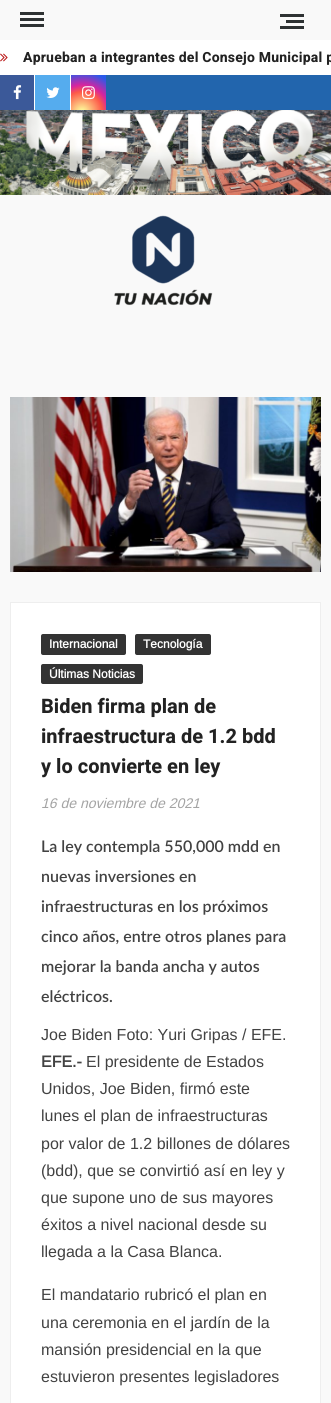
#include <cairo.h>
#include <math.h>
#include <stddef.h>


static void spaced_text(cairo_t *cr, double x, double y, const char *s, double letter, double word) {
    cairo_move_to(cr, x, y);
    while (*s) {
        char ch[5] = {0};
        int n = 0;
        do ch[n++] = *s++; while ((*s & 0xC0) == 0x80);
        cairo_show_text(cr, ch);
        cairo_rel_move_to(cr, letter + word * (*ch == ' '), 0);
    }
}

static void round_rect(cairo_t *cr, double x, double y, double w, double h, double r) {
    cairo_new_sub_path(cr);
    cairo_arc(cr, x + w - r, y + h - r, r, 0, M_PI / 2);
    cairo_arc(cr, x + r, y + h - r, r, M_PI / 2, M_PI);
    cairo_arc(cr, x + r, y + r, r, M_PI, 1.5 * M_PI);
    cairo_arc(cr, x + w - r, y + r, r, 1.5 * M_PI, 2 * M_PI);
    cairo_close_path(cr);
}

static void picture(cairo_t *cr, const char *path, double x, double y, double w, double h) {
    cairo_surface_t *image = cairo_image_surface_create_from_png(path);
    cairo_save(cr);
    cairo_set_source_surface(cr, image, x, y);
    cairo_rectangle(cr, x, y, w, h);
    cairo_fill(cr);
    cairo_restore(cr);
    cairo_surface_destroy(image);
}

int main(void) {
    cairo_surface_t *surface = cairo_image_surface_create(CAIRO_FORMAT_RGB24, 331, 1403);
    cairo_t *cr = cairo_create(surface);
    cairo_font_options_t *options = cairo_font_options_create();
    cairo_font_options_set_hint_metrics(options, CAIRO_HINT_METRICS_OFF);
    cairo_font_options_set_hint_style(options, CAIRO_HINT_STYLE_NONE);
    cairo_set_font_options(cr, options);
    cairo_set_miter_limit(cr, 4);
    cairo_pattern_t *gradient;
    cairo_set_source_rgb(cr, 0.973, 0.973, 0.973);
    cairo_paint(cr);
    cairo_set_source_rgb(cr, 0.18, 0.196, 0.2);
    cairo_rectangle(cr, 20, 18, 24, 3);
    cairo_fill(cr);
    cairo_rectangle(cr, 20, 12, 24, 3);
    cairo_fill(cr);
    cairo_rectangle(cr, 20, 24, 24, 3);
    cairo_fill(cr);
    cairo_rectangle(cr, 286, 20, 18, 3);
    cairo_fill(cr);
    cairo_rectangle(cr, 280, 14, 24, 3);
    cairo_fill(cr);
    cairo_rectangle(cr, 280, 26, 24, 3);
    cairo_fill(cr);
    cairo_set_source_rgb(cr, 1, 1, 1);
    cairo_rectangle(cr, 0, 40, 331, 35);
    cairo_fill(cr);
    picture(cr, "img1.png", 0, 53, 8, 9);
    cairo_select_font_face(cr, "Heebo", CAIRO_FONT_SLANT_NORMAL, CAIRO_FONT_WEIGHT_BOLD);
    cairo_set_font_size(cr, 14);
    cairo_set_source_rgb(cr, 0.133, 0.133, 0.133);
    spaced_text(cr, 23, 62, "Aprueban a integrantes del Consejo Municipal p", 0.2, 0);
    cairo_set_source_rgb(cr, 0.133, 0.396, 0.678);
    cairo_rectangle(cr, 106, 75, 225, 35);
    cairo_fill(cr);
    cairo_set_source_rgb(cr, 0.231, 0.349, 0.6);
    cairo_rectangle(cr, 0, 75, 34, 35);
    cairo_fill(cr);
    picture(cr, "img2.png", 13, 85, 9, 15);
    cairo_set_source_rgb(cr, 1, 1, 1);
    cairo_rectangle(cr, 34, 75, 1, 35);
    cairo_fill(cr);
    cairo_set_source_rgb(cr, 0.333, 0.675, 0.933);
    cairo_rectangle(cr, 35, 75, 35, 35);
    cairo_fill(cr);
    picture(cr, "img3.png", 46, 87, 14, 11);
    cairo_set_source_rgb(cr, 1, 1, 1);
    cairo_rectangle(cr, 70, 75, 1, 35);
    cairo_fill(cr);
    gradient = cairo_pattern_create_radial(82, 112, 0, 82, 112, 45);
    cairo_pattern_add_color_stop_rgba(gradient, 0, 0.992, 0.957, 0.592, 1);
    cairo_pattern_add_color_stop_rgba(gradient, 0.05, 0.992, 0.957, 0.592, 1);
    cairo_pattern_add_color_stop_rgba(gradient, 0.45, 0.992, 0.349, 0.286, 1);
    cairo_pattern_add_color_stop_rgba(gradient, 0.6, 0.839, 0.141, 0.624, 1);
    cairo_pattern_add_color_stop_rgba(gradient, 0.9, 0.157, 0.353, 0.922, 1);
    cairo_set_source(cr, gradient);
    cairo_pattern_destroy(gradient);
    cairo_rectangle(cr, 71, 75, 35, 35);
    cairo_fill(cr);
    picture(cr, "img4.png", 82, 86, 13, 14);
    picture(cr, "img5.png", 0, 110, 331, 85);
    picture(cr, "img6.png", 114, 215, 99, 91);
    picture(cr, "img7.png", 10, 397, 311, 175);
    cairo_set_source_rgb(cr, 1, 1, 1);
    cairo_rectangle(cr, 10.5, 602.5, 310, 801);
    cairo_fill_preserve(cr);
    cairo_set_source_rgb(cr, 0.933, 0.933, 0.933);
    cairo_set_line_width(cr, 1);
    cairo_stroke(cr);
    cairo_set_source_rgb(cr, 0.2, 0.2, 0.2);
    round_rect(cr, 41, 634, 85, 21, 2);
    cairo_fill(cr);
    cairo_select_font_face(cr, "Arimo", CAIRO_FONT_SLANT_NORMAL, CAIRO_FONT_WEIGHT_BOLD);
    cairo_set_font_size(cr, 12);
    cairo_set_source_rgb(cr, 1, 1, 1);
    cairo_move_to(cr, 49, 648);
    cairo_show_text(cr, "Internacional");
    cairo_set_source_rgb(cr, 0.2, 0.2, 0.2);
    round_rect(cr, 135, 634, 76, 21, 2);
    cairo_fill(cr);
    cairo_set_source_rgb(cr, 1, 1, 1);
    cairo_move_to(cr, 143, 648);
    cairo_show_text(cr, "Tecnología");
    cairo_set_source_rgb(cr, 0.2, 0.2, 0.2);
    round_rect(cr, 41, 664, 102, 20, 2);
    cairo_fill(cr);
    cairo_set_source_rgb(cr, 1, 1, 1);
    cairo_move_to(cr, 49, 678);
    cairo_show_text(cr, "Últimas Noticias");
    cairo_select_font_face(cr, "Heebo", CAIRO_FONT_SLANT_NORMAL, CAIRO_FONT_WEIGHT_BOLD);
    cairo_set_font_size(cr, 20);
    cairo_set_source_rgb(cr, 0.133, 0.133, 0.133);
    cairo_move_to(cr, 41, 713);
    cairo_show_text(cr, "Biden firma plan de");
    cairo_move_to(cr, 41, 743);
    cairo_show_text(cr, "infraestructura de 1.2 bdd");
    cairo_move_to(cr, 41, 773);
    cairo_show_text(cr, "y lo convierte en ley");
    cairo_select_font_face(cr, "Arimo", CAIRO_FONT_SLANT_ITALIC, CAIRO_FONT_WEIGHT_NORMAL);
    cairo_set_font_size(cr, 14);
    cairo_set_source_rgb(cr, 0.643, 0.643, 0.643);
    cairo_move_to(cr, 41, 808);
    cairo_show_text(cr, "16 de noviembre de 2021");
    cairo_select_font_face(cr, "Lato SemiBold", CAIRO_FONT_SLANT_NORMAL, CAIRO_FONT_WEIGHT_NORMAL);
    cairo_set_font_size(cr, 16);
    cairo_set_source_rgb(cr, 0.259, 0.259, 0.259);
    cairo_move_to(cr, 41, 852);
    cairo_show_text(cr, "La ley contempla 550,000 mdd en");
    cairo_move_to(cr, 41, 882);
    cairo_show_text(cr, "nuevas inversiones en");
    cairo_move_to(cr, 41, 912);
    cairo_show_text(cr, "infraestructuras en los próximos");
    cairo_move_to(cr, 41, 942);
    cairo_show_text(cr, "cinco años, entre otros planes para");
    cairo_move_to(cr, 41, 972);
    cairo_show_text(cr, "mejorar la banda ancha y autos");
    cairo_move_to(cr, 41, 1002);
    cairo_show_text(cr, "eléctricos.");
    cairo_select_font_face(cr, "Arimo", CAIRO_FONT_SLANT_NORMAL, CAIRO_FONT_WEIGHT_NORMAL);
    cairo_move_to(cr, 41, 1040);
    cairo_show_text(cr, "Joe Biden Foto: Yuri Gripas / EFE.");
    cairo_select_font_face(cr, "Arimo", CAIRO_FONT_SLANT_NORMAL, CAIRO_FONT_WEIGHT_BOLD);
    cairo_move_to(cr, 41, 1067);
    cairo_show_text(cr, "EFE.-");
    cairo_select_font_face(cr, "Arimo", CAIRO_FONT_SLANT_NORMAL, CAIRO_FONT_WEIGHT_NORMAL);
    cairo_move_to(cr, 86, 1067);
    cairo_show_text(cr, "El presidente de Estados");
    cairo_move_to(cr, 41, 1094);
    cairo_show_text(cr, "Unidos, Joe Biden, firmó este");
    cairo_move_to(cr, 41, 1121);
    cairo_show_text(cr, "lunes el plan de infraestructuras");
    cairo_move_to(cr, 41, 1149);
    cairo_show_text(cr, "por valor de 1.2 billones de dólares");
    cairo_move_to(cr, 41, 1176);
    cairo_show_text(cr, "(bdd), que se convirtió así en ley y");
    cairo_move_to(cr, 41, 1203);
    cairo_show_text(cr, "que supone uno de sus mayores");
    cairo_move_to(cr, 41, 1230);
    cairo_show_text(cr, "éxitos a nivel nacional desde su");
    cairo_move_to(cr, 41, 1257);
    cairo_show_text(cr, "llegada a la Casa Blanca.");
    cairo_move_to(cr, 41, 1300);
    cairo_show_text(cr, "El mandatario rubricó el plan en");
    cairo_move_to(cr, 41, 1328);
    cairo_show_text(cr, "una ceremonia en el jardín de la");
    cairo_move_to(cr, 41, 1355);
    cairo_show_text(cr, "mansión presidencial en la que");
    cairo_move_to(cr, 41, 1382);
    cairo_show_text(cr, "estuvieron presentes legisladores");
    cairo_surface_write_to_png(surface, "page.png");
    cairo_font_options_destroy(options);
    cairo_destroy(cr);
    cairo_surface_destroy(surface);
    return 0;
}
